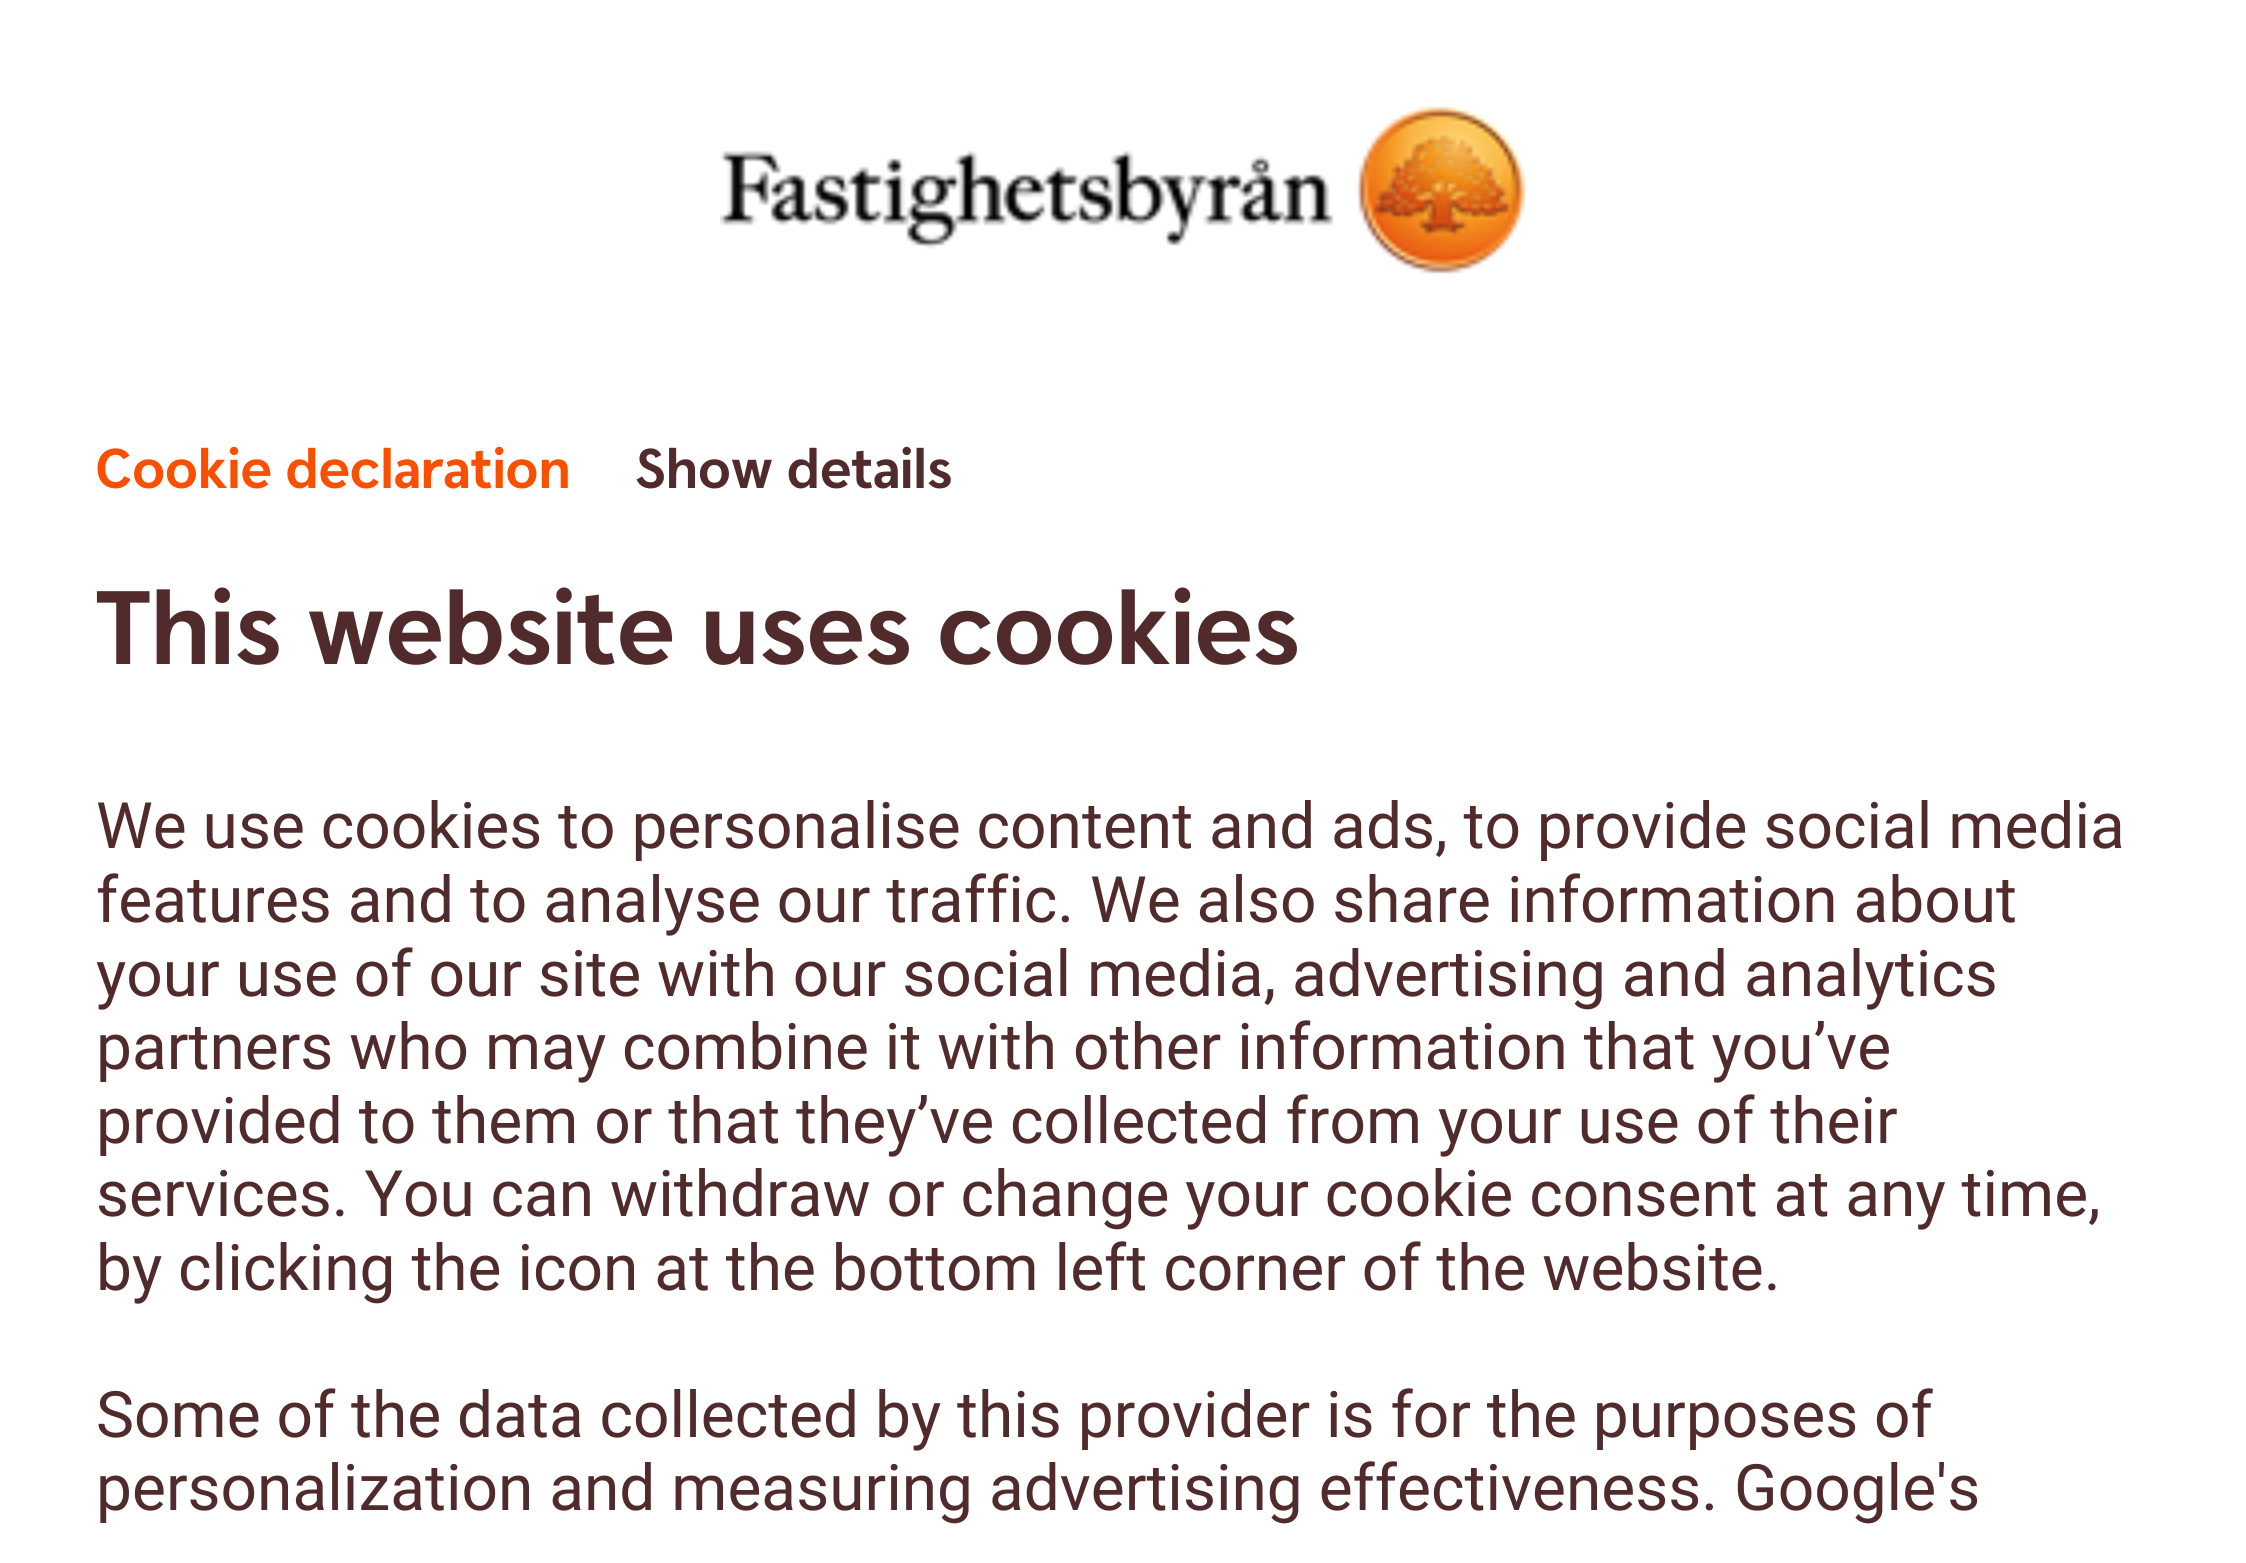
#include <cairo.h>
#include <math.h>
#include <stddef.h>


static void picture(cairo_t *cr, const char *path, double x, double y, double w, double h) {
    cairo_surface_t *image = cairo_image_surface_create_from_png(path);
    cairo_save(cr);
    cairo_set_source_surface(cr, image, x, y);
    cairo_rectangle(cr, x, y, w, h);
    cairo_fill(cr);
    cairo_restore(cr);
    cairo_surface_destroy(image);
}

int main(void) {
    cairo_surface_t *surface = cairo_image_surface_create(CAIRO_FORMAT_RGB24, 2246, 1563);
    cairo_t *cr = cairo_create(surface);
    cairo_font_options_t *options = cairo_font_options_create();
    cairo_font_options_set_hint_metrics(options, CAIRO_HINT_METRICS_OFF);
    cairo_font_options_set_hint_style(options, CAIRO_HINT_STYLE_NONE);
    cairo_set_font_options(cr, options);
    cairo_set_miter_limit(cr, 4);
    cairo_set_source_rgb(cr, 1, 1, 1);
    cairo_paint(cr);
    picture(cr, "img1.png", 720, 106, 806, 168);
    cairo_select_font_face(cr, "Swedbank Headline", CAIRO_FONT_SLANT_NORMAL, CAIRO_FONT_WEIGHT_BOLD);
    cairo_set_font_size(cr, 56);
    cairo_set_source_rgb(cr, 0.984, 0.31, 0);
    cairo_move_to(cr, 96, 488);
    cairo_show_text(cr, "Cookie declaration");
    cairo_set_source_rgb(cr, 0.318, 0.169, 0.169);
    cairo_move_to(cr, 635, 488);
    cairo_show_text(cr, "Show details");
    cairo_set_font_size(cr, 104);
    cairo_move_to(cr, 96, 664);
    cairo_show_text(cr, "This website uses cookies");
    cairo_select_font_face(cr, "Roboto", CAIRO_FONT_SLANT_NORMAL, CAIRO_FONT_WEIGHT_NORMAL);
    cairo_set_font_size(cr, 64);
    cairo_move_to(cr, 96, 848);
    cairo_show_text(cr, "We use cookies to personalise content and ads, to provide social media");
    cairo_move_to(cr, 96, 922);
    cairo_show_text(cr, "features and to analyse our traffic. We also share information about");
    cairo_move_to(cr, 96, 996);
    cairo_show_text(cr, "your use of our site with our social media, advertising and analytics");
    cairo_move_to(cr, 96, 1069);
    cairo_show_text(cr, "partners who may combine it with other information that you’ve");
    cairo_move_to(cr, 96, 1143);
    cairo_show_text(cr, "provided to them or that they’ve collected from your use of their");
    cairo_move_to(cr, 96, 1216);
    cairo_show_text(cr, "services. You can withdraw or change your cookie consent at any time,");
    cairo_move_to(cr, 96, 1290);
    cairo_show_text(cr, "by clicking the icon at the bottom left corner of the website.");
    cairo_move_to(cr, 96, 1437);
    cairo_show_text(cr, "Some of the data collected by this provider is for the purposes of");
    cairo_move_to(cr, 96, 1510);
    cairo_show_text(cr, "personalization and measuring advertising effectiveness. Google's");
    cairo_surface_write_to_png(surface, "page.png");
    cairo_font_options_destroy(options);
    cairo_destroy(cr);
    cairo_surface_destroy(surface);
    return 0;
}
